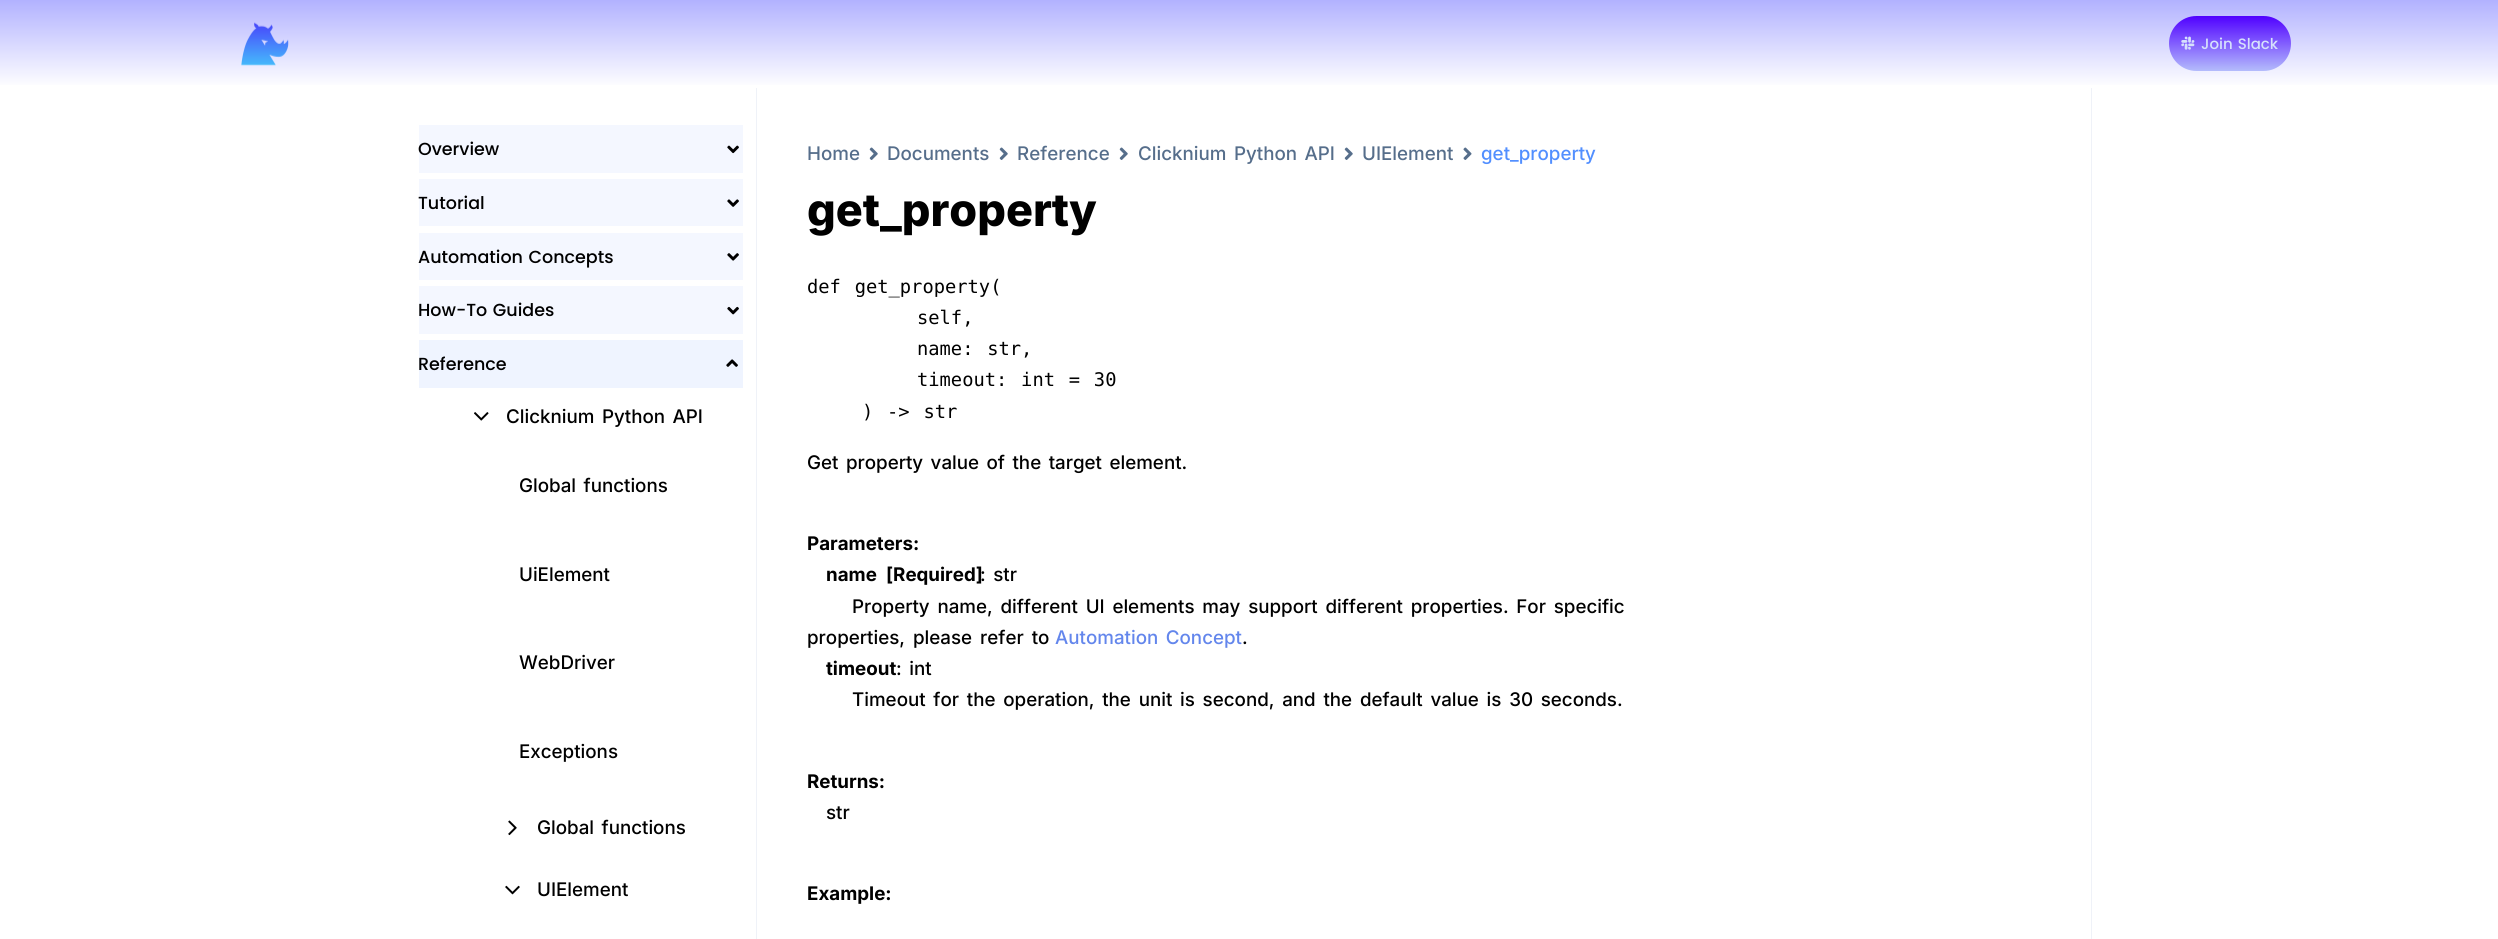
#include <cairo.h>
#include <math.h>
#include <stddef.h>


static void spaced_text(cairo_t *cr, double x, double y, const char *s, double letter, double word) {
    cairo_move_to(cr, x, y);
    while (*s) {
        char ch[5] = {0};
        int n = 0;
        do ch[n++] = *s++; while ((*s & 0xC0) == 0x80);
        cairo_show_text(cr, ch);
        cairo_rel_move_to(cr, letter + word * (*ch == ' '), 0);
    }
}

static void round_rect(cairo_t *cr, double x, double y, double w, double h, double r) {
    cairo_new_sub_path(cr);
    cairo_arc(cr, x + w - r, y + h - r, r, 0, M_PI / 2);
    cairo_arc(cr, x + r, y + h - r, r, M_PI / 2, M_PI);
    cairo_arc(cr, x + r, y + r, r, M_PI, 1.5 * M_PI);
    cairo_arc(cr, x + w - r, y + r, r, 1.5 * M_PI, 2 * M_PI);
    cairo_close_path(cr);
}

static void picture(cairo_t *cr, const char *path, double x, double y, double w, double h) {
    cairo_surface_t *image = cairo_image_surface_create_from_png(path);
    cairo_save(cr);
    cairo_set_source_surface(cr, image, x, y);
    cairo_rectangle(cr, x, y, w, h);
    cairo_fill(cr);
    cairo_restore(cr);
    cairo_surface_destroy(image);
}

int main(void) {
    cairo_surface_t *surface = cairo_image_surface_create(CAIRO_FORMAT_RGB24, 2498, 939);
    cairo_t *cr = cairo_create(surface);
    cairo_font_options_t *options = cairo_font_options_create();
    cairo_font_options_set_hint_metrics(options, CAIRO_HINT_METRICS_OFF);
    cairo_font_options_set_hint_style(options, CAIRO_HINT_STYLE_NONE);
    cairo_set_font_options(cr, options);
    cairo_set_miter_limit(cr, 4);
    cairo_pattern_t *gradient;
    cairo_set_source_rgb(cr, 1, 1, 1);
    cairo_paint(cr);
    gradient = cairo_pattern_create_linear(1249, 0, 1249, 88);
    cairo_pattern_add_color_stop_rgba(gradient, 0, 0.698, 0.698, 1, 1);
    cairo_pattern_add_color_stop_rgba(gradient, 1, 1, 1, 1, 1);
    cairo_set_source(cr, gradient);
    cairo_pattern_destroy(gradient);
    cairo_rectangle(cr, 0, 0, 2498, 85);
    cairo_fill(cr);
    picture(cr, "img1.png", 241, 22, 48, 44);
    gradient = cairo_pattern_create_linear(2230, 16, 2230, 71);
    cairo_pattern_add_color_stop_rgba(gradient, 0, 0.314, 0, 1, 1);
    cairo_pattern_add_color_stop_rgba(gradient, 1, 0.706, 0.737, 0.988, 1);
    cairo_set_source(cr, gradient);
    cairo_pattern_destroy(gradient);
    round_rect(cr, 2169, 16, 122, 55, 27.5);
    cairo_fill(cr);
    picture(cr, "img2.png", 2181, 36, 14, 14);
    cairo_select_font_face(cr, "Poppins Medium", CAIRO_FONT_SLANT_NORMAL, CAIRO_FONT_WEIGHT_NORMAL);
    cairo_set_font_size(cr, 15);
    cairo_set_source_rgb(cr, 0.839, 0.878, 0.988);
    spaced_text(cr, 2201, 49, "Join Slack", 0, 1);
    cairo_set_source_rgb(cr, 0.957, 0.965, 1);
    cairo_rectangle(cr, 419, 125, 324, 48);
    cairo_fill(cr);
    cairo_set_font_size(cr, 17.5);
    cairo_set_source_rgb(cr, 0, 0, 0);
    cairo_move_to(cr, 418, 155);
    cairo_show_text(cr, "Overview");
    picture(cr, "img3.png", 727, 145, 12, 9);
    cairo_set_source_rgb(cr, 0.957, 0.965, 1);
    cairo_rectangle(cr, 419, 179, 324, 47);
    cairo_fill(cr);
    cairo_set_source_rgb(cr, 0, 0, 0);
    cairo_move_to(cr, 418, 209);
    cairo_show_text(cr, "Tutorial");
    picture(cr, "img4.png", 727, 199, 12, 8);
    cairo_set_source_rgb(cr, 0.957, 0.965, 1);
    cairo_rectangle(cr, 419, 233, 324, 47);
    cairo_fill(cr);
    cairo_set_source_rgb(cr, 0, 0, 0);
    spaced_text(cr, 418, 263, "Automation Concepts", 0, 1);
    picture(cr, "img5.png", 727, 253, 12, 8);
    cairo_set_source_rgb(cr, 0.957, 0.965, 1);
    cairo_rectangle(cr, 419, 286, 324, 48);
    cairo_fill(cr);
    cairo_set_source_rgb(cr, 0, 0, 0);
    spaced_text(cr, 418, 316, "How-To Guides", 0, 1);
    picture(cr, "img6.png", 727, 306, 12, 9);
    cairo_set_source_rgb(cr, 0.937, 0.957, 1);
    cairo_rectangle(cr, 419, 340, 324, 48);
    cairo_fill(cr);
    cairo_set_source_rgb(cr, 0, 0, 0);
    cairo_move_to(cr, 418, 370);
    cairo_show_text(cr, "Reference");
    picture(cr, "img7.png", 726, 359, 12, 8);
    picture(cr, "img8.png", 474, 412, 15, 9);
    cairo_select_font_face(cr, "Inter Medium", CAIRO_FONT_SLANT_NORMAL, CAIRO_FONT_WEIGHT_NORMAL);
    cairo_set_font_size(cr, 18.75);
    spaced_text(cr, 506, 423, "Clicknium Python API", 0, 2.5);
    spaced_text(cr, 519, 492, "Global functions", 0, 2.5);
    cairo_move_to(cr, 519, 581);
    cairo_show_text(cr, "UiElement");
    cairo_move_to(cr, 519, 669);
    cairo_show_text(cr, "WebDriver");
    cairo_move_to(cr, 519, 758);
    cairo_show_text(cr, "Exceptions");
    picture(cr, "img9.png", 508, 820, 9, 16);
    spaced_text(cr, 537, 834, "Global functions", 0, 2.5);
    picture(cr, "img10.png", 505, 885, 15, 10);
    cairo_move_to(cr, 537, 896);
    cairo_show_text(cr, "UIElement");
    cairo_set_source_rgb(cr, 0.937, 0.949, 0.969);
    cairo_rectangle(cr, 2091, 88, 1, 851);
    cairo_fill(cr);
    cairo_rectangle(cr, 756, 88, 1, 851);
    cairo_fill(cr);
    cairo_set_source_rgb(cr, 0.337, 0.431, 0.545);
    cairo_move_to(cr, 807, 160);
    cairo_show_text(cr, "Home");
    picture(cr, "img11.png", 869, 147, 9, 13);
    cairo_move_to(cr, 887, 160);
    cairo_show_text(cr, "Documents");
    picture(cr, "img11.png", 999, 147, 9, 13);
    cairo_move_to(cr, 1017, 160);
    cairo_show_text(cr, "Reference");
    picture(cr, "img11.png", 1119, 147, 9, 13);
    spaced_text(cr, 1138, 160, "Clicknium Python API", 0, 2.5);
    picture(cr, "img11.png", 1344, 147, 9, 13);
    cairo_move_to(cr, 1362, 160);
    cairo_show_text(cr, "UIElement");
    picture(cr, "img12.png", 1463, 147, 9, 13);
    cairo_set_source_rgb(cr, 0.322, 0.561, 1);
    cairo_move_to(cr, 1481, 160);
    cairo_show_text(cr, "get_property");
    cairo_select_font_face(cr, "Inter ExtraBold", CAIRO_FONT_SLANT_NORMAL, CAIRO_FONT_WEIGHT_NORMAL);
    cairo_set_font_size(cr, 45);
    cairo_set_source_rgb(cr, 0, 0, 0);
    cairo_move_to(cr, 807, 226);
    cairo_show_text(cr, "get_property");
    cairo_select_font_face(cr, "DejaVu Sans Mono", CAIRO_FONT_SLANT_NORMAL, CAIRO_FONT_WEIGHT_NORMAL);
    cairo_set_font_size(cr, 18.75);
    spaced_text(cr, 807, 293, "def get_property(", 0, 2.5);
    cairo_move_to(cr, 917, 324);
    cairo_show_text(cr, "self,");
    spaced_text(cr, 917, 355, "name: str,", 0, 2.5);
    spaced_text(cr, 917, 386, "timeout: int = 30", 0, 2.5);
    spaced_text(cr, 862, 418, ") -> str", 0, 2.5);
    cairo_select_font_face(cr, "Inter Medium", CAIRO_FONT_SLANT_NORMAL, CAIRO_FONT_WEIGHT_NORMAL);
    spaced_text(cr, 807, 469, "Get property value of the target element.", 0, 2.5);
    cairo_select_font_face(cr, "Inter", CAIRO_FONT_SLANT_NORMAL, CAIRO_FONT_WEIGHT_BOLD);
    cairo_move_to(cr, 807, 550);
    cairo_show_text(cr, "Parameters:");
    cairo_move_to(cr, 826, 581);
    cairo_show_text(cr, "name");
    cairo_move_to(cr, 886, 581);
    cairo_show_text(cr, "[Required]");
    cairo_select_font_face(cr, "Inter Medium", CAIRO_FONT_SLANT_NORMAL, CAIRO_FONT_WEIGHT_NORMAL);
    spaced_text(cr, 980, 581, ": str", 0, 2.5);
    spaced_text(cr, 852, 613, "Property name, different UI elements may support different properties. For specific", 0, 2.75);
    spaced_text(cr, 807, 644, "properties, please refer to", 0, 3);
    cairo_set_source_rgb(cr, 0.388, 0.525, 0.922);
    spaced_text(cr, 1055, 644, "Automation Concept", 0, 2.5);
    cairo_set_source_rgb(cr, 0, 0, 0);
    cairo_move_to(cr, 1242, 644);
    cairo_show_text(cr, ".");
    cairo_select_font_face(cr, "Inter", CAIRO_FONT_SLANT_NORMAL, CAIRO_FONT_WEIGHT_BOLD);
    cairo_move_to(cr, 826, 675);
    cairo_show_text(cr, "timeout");
    cairo_select_font_face(cr, "Inter Medium", CAIRO_FONT_SLANT_NORMAL, CAIRO_FONT_WEIGHT_NORMAL);
    spaced_text(cr, 896, 675, ": int", 0, 2.5);
    spaced_text(cr, 852, 706, "Timeout for the operation, the unit is second, and the default value is 30 seconds.", 0, 2.75);
    cairo_select_font_face(cr, "Inter", CAIRO_FONT_SLANT_NORMAL, CAIRO_FONT_WEIGHT_BOLD);
    cairo_move_to(cr, 807, 788);
    cairo_show_text(cr, "Returns:");
    cairo_select_font_face(cr, "Inter Medium", CAIRO_FONT_SLANT_NORMAL, CAIRO_FONT_WEIGHT_NORMAL);
    cairo_move_to(cr, 826, 819);
    cairo_show_text(cr, "str");
    cairo_select_font_face(cr, "Inter", CAIRO_FONT_SLANT_NORMAL, CAIRO_FONT_WEIGHT_BOLD);
    cairo_move_to(cr, 807, 900);
    cairo_show_text(cr, "Example:");
    cairo_surface_write_to_png(surface, "page.png");
    cairo_font_options_destroy(options);
    cairo_destroy(cr);
    cairo_surface_destroy(surface);
    return 0;
}
